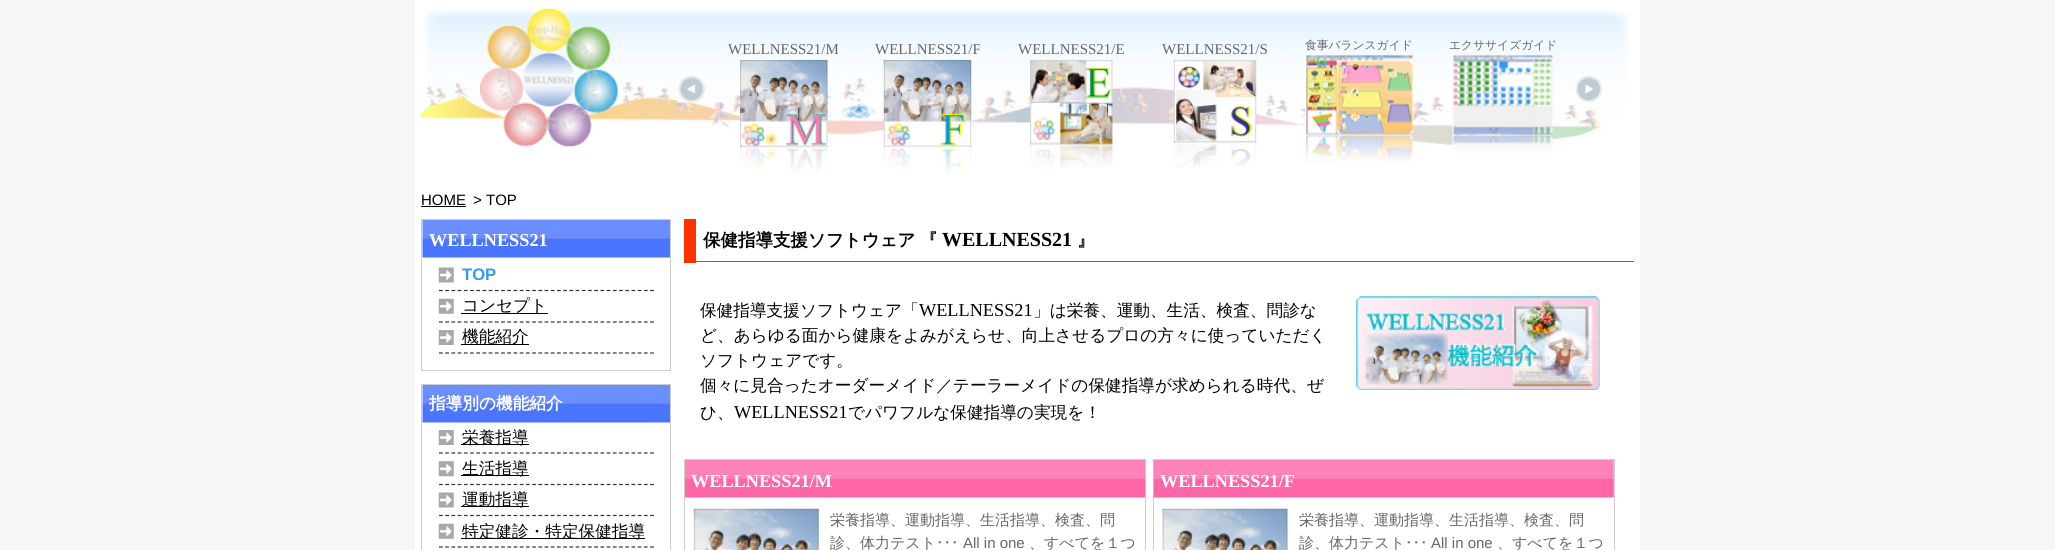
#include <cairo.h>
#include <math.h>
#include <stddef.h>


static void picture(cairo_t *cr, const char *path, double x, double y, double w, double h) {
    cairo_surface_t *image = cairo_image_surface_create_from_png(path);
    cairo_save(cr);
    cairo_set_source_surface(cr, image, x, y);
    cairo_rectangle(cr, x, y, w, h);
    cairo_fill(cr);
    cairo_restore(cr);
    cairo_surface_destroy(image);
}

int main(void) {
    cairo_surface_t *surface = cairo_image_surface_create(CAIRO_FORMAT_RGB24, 2055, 550);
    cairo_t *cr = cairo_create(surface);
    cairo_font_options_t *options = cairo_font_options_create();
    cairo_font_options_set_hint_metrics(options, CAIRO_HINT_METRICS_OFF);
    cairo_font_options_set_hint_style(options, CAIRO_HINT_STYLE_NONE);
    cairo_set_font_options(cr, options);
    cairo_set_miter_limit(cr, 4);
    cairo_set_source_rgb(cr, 0.961, 0.961, 0.961);
    cairo_paint(cr);
    cairo_set_source_rgb(cr, 1, 1, 1);
    cairo_rectangle(cr, 415, 0, 1225, 550);
    cairo_fill(cr);
    picture(cr, "img1.png", 421, 10, 1209, 137);
    picture(cr, "img2.png", 480, 8, 138, 139);
    cairo_select_font_face(cr, "Liberation Serif", CAIRO_FONT_SLANT_NORMAL, CAIRO_FONT_WEIGHT_NORMAL);
    cairo_set_font_size(cr, 15);
    cairo_set_source_rgb(cr, 0.4, 0.4, 0.4);
    cairo_move_to(cr, 728, 54);
    cairo_show_text(cr, "WELLNESS21/M");
    picture(cr, "img3.png", 740, 60, 88, 112);
    cairo_move_to(cr, 875, 54);
    cairo_show_text(cr, "WELLNESS21/F");
    picture(cr, "img4.png", 883, 60, 89, 113);
    cairo_move_to(cr, 1018, 54);
    cairo_show_text(cr, "WELLNESS21/E");
    picture(cr, "img5.png", 1030, 60, 83, 108);
    cairo_move_to(cr, 1162, 54);
    cairo_show_text(cr, "WELLNESS21/S");
    picture(cr, "img6.png", 1173, 60, 84, 108);
    cairo_select_font_face(cr, "WenQuanYi Zen Hei Medium", CAIRO_FONT_SLANT_NORMAL, CAIRO_FONT_WEIGHT_NORMAL);
    cairo_set_font_size(cr, 11.75);
    cairo_move_to(cr, 1305, 49);
    cairo_show_text(cr, "食事バランスガイド");
    picture(cr, "img7.png", 1305, 55, 108, 107);
    cairo_move_to(cr, 1449, 49);
    cairo_show_text(cr, "エクササイズガイド");
    picture(cr, "img8.png", 1452, 55, 101, 98);
    picture(cr, "img9.png", 677, 75, 28, 28);
    picture(cr, "img10.png", 1575, 75, 28, 28);
    cairo_select_font_face(cr, "Liberation Sans", CAIRO_FONT_SLANT_NORMAL, CAIRO_FONT_WEIGHT_NORMAL);
    cairo_set_font_size(cr, 15);
    cairo_set_source_rgb(cr, 0, 0, 0);
    cairo_move_to(cr, 421, 205);
    cairo_show_text(cr, "HOME");
    cairo_rectangle(cr, 421, 206, 45, 1);
    cairo_fill(cr);
    cairo_move_to(cr, 473, 205);
    cairo_show_text(cr, ">");
    cairo_move_to(cr, 486, 205);
    cairo_show_text(cr, "TOP");
    cairo_rectangle(cr, 421.5, 219.5, 249, 151);
    cairo_set_source_rgb(cr, 0.8, 0.8, 0.8);
    cairo_set_line_width(cr, 1);
    cairo_stroke(cr);
    picture(cr, "img11.png", 422, 220, 248, 38);
    cairo_select_font_face(cr, "Liberation Serif", CAIRO_FONT_SLANT_NORMAL, CAIRO_FONT_WEIGHT_BOLD);
    cairo_set_font_size(cr, 18.25);
    cairo_set_source_rgb(cr, 1, 1, 1);
    cairo_move_to(cr, 429, 246);
    cairo_show_text(cr, "WELLNESS21");
    picture(cr, "img12.png", 438, 267, 16, 16);
    cairo_new_path(cr);
    cairo_move_to(cr, 439, 290.5);
    cairo_line_to(cr, 654, 290.5);
    cairo_set_source_rgb(cr, 0.2, 0.2, 0.2);
    cairo_set_line_width(cr, 1.2);
    cairo_set_dash(cr, (double[]){3.75, 2.46}, 2, 0);
    cairo_stroke(cr);
    cairo_select_font_face(cr, "Liberation Sans", CAIRO_FONT_SLANT_NORMAL, CAIRO_FONT_WEIGHT_BOLD);
    cairo_set_font_size(cr, 16.65);
    cairo_set_source_rgb(cr, 0.2, 0.6, 1);
    cairo_move_to(cr, 462, 280);
    cairo_show_text(cr, "TOP");
    picture(cr, "img13.png", 438, 298, 16, 16);
    cairo_new_path(cr);
    cairo_move_to(cr, 439, 322);
    cairo_line_to(cr, 654, 322);
    cairo_set_source_rgb(cr, 0.2, 0.2, 0.2);
    cairo_stroke(cr);
    cairo_set_source_rgb(cr, 0, 0, 0);
    cairo_rectangle(cr, 461, 313, 87, 1);
    cairo_fill(cr);
    cairo_select_font_face(cr, "WenQuanYi Zen Hei Medium", CAIRO_FONT_SLANT_NORMAL, CAIRO_FONT_WEIGHT_NORMAL);
    cairo_move_to(cr, 462, 311);
    cairo_show_text(cr, "コンセプト");
    picture(cr, "img14.png", 438, 330, 16, 15);
    cairo_new_path(cr);
    cairo_move_to(cr, 439, 353);
    cairo_line_to(cr, 654, 353);
    cairo_set_source_rgb(cr, 0.2, 0.2, 0.2);
    cairo_stroke(cr);
    cairo_set_source_rgb(cr, 0, 0, 0);
    cairo_rectangle(cr, 461, 344, 68, 1);
    cairo_fill(cr);
    cairo_move_to(cr, 462, 342);
    cairo_show_text(cr, "機能紹介");
    cairo_rectangle(cr, 421.5, 384.5, 249, 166);
    cairo_set_source_rgb(cr, 0.8, 0.8, 0.8);
    cairo_set_line_width(cr, 1);
    cairo_set_dash(cr, NULL, 0, 0);
    cairo_stroke(cr);
    picture(cr, "img15.png", 422, 385, 248, 38);
    cairo_select_font_face(cr, "WenQuanYi Zen Hei", CAIRO_FONT_SLANT_NORMAL, CAIRO_FONT_WEIGHT_BOLD);
    cairo_set_source_rgb(cr, 1, 1, 1);
    cairo_move_to(cr, 429, 409);
    cairo_show_text(cr, "指導別の機能紹介");
    picture(cr, "img14.png", 438, 430, 16, 15);
    cairo_new_path(cr);
    cairo_move_to(cr, 439, 453);
    cairo_line_to(cr, 654, 453);
    cairo_set_source_rgb(cr, 0.2, 0.2, 0.2);
    cairo_set_line_width(cr, 1.2);
    cairo_set_dash(cr, (double[]){3.75, 2.46}, 2, 0);
    cairo_stroke(cr);
    cairo_set_source_rgb(cr, 0, 0, 0);
    cairo_rectangle(cr, 461, 444, 68, 1);
    cairo_fill(cr);
    cairo_select_font_face(cr, "WenQuanYi Zen Hei Medium", CAIRO_FONT_SLANT_NORMAL, CAIRO_FONT_WEIGHT_NORMAL);
    cairo_move_to(cr, 462, 443);
    cairo_show_text(cr, "栄養指導");
    picture(cr, "img16.png", 438, 461, 16, 16);
    cairo_new_path(cr);
    cairo_move_to(cr, 439, 484.5);
    cairo_line_to(cr, 654, 484.5);
    cairo_set_source_rgb(cr, 0.2, 0.2, 0.2);
    cairo_stroke(cr);
    cairo_set_source_rgb(cr, 0, 0, 0);
    cairo_rectangle(cr, 461, 475, 68, 1);
    cairo_fill(cr);
    cairo_move_to(cr, 462, 474);
    cairo_show_text(cr, "生活指導");
    picture(cr, "img12.png", 438, 492, 16, 16);
    cairo_new_path(cr);
    cairo_move_to(cr, 439, 515.5);
    cairo_line_to(cr, 654, 515.5);
    cairo_set_source_rgb(cr, 0.2, 0.2, 0.2);
    cairo_stroke(cr);
    cairo_set_source_rgb(cr, 0, 0, 0);
    cairo_rectangle(cr, 461, 506, 68, 1);
    cairo_fill(cr);
    cairo_move_to(cr, 462, 505);
    cairo_show_text(cr, "運動指導");
    picture(cr, "img13.png", 438, 523, 16, 16);
    cairo_new_path(cr);
    cairo_move_to(cr, 439, 547);
    cairo_line_to(cr, 654, 547);
    cairo_set_source_rgb(cr, 0.2, 0.2, 0.2);
    cairo_stroke(cr);
    cairo_set_source_rgb(cr, 0, 0, 0);
    cairo_rectangle(cr, 461, 538, 184, 1);
    cairo_fill(cr);
    cairo_move_to(cr, 462, 537);
    cairo_show_text(cr, "特定健診・特定保健指導");
    cairo_set_source_rgb(cr, 1, 0.2, 0);
    cairo_rectangle(cr, 696, 261, 938, 1);
    cairo_fill(cr);
    cairo_rectangle(cr, 684, 219, 12, 44);
    cairo_fill(cr);
    cairo_select_font_face(cr, "WenQuanYi Zen Hei", CAIRO_FONT_SLANT_NORMAL, CAIRO_FONT_WEIGHT_BOLD);
    cairo_set_font_size(cr, 17.5);
    cairo_set_source_rgb(cr, 0, 0, 0);
    cairo_move_to(cr, 703, 246);
    cairo_show_text(cr, "保健指導支援ソフトウェア");
    cairo_move_to(cr, 920, 246);
    cairo_show_text(cr, "『");
    cairo_select_font_face(cr, "Liberation Serif", CAIRO_FONT_SLANT_NORMAL, CAIRO_FONT_WEIGHT_BOLD);
    cairo_set_font_size(cr, 20);
    cairo_move_to(cr, 942, 246);
    cairo_show_text(cr, "WELLNESS21");
    cairo_select_font_face(cr, "WenQuanYi Zen Hei", CAIRO_FONT_SLANT_NORMAL, CAIRO_FONT_WEIGHT_BOLD);
    cairo_set_font_size(cr, 17.5);
    cairo_move_to(cr, 1077, 246);
    cairo_show_text(cr, "』");
    cairo_select_font_face(cr, "WenQuanYi Zen Hei Medium", CAIRO_FONT_SLANT_NORMAL, CAIRO_FONT_WEIGHT_NORMAL);
    cairo_set_font_size(cr, 16.65);
    cairo_move_to(cr, 700, 316);
    cairo_show_text(cr, "保健指導支援ソフトウェア「");
    cairo_select_font_face(cr, "Liberation Serif", CAIRO_FONT_SLANT_NORMAL, CAIRO_FONT_WEIGHT_NORMAL);
    cairo_set_font_size(cr, 18.25);
    cairo_move_to(cr, 919, 316);
    cairo_show_text(cr, "WELLNESS21");
    cairo_select_font_face(cr, "WenQuanYi Zen Hei Medium", CAIRO_FONT_SLANT_NORMAL, CAIRO_FONT_WEIGHT_NORMAL);
    cairo_set_font_size(cr, 16.65);
    cairo_move_to(cr, 1033, 316);
    cairo_show_text(cr, "」は栄養、運動、生活、検査、問診な");
    cairo_move_to(cr, 700, 341);
    cairo_show_text(cr, "ど、あらゆる面から健康をよみがえらせ、向上させるプロの方々に使っていただく");
    cairo_move_to(cr, 700, 366);
    cairo_show_text(cr, "ソフトウェアです。");
    cairo_move_to(cr, 700, 391);
    cairo_show_text(cr, "個々に見合ったオーダーメイド／テーラーメイドの保健指導が求められる時代、ぜ");
    cairo_move_to(cr, 700, 418);
    cairo_show_text(cr, "ひ、");
    cairo_select_font_face(cr, "Liberation Serif", CAIRO_FONT_SLANT_NORMAL, CAIRO_FONT_WEIGHT_NORMAL);
    cairo_set_font_size(cr, 18.25);
    cairo_move_to(cr, 734, 418);
    cairo_show_text(cr, "WELLNESS21");
    cairo_select_font_face(cr, "WenQuanYi Zen Hei Medium", CAIRO_FONT_SLANT_NORMAL, CAIRO_FONT_WEIGHT_NORMAL);
    cairo_set_font_size(cr, 16.65);
    cairo_move_to(cr, 848, 418);
    cairo_show_text(cr, "でパワフルな保健指導の実現を！");
    picture(cr, "img17.png", 1356, 296, 244, 94);
    cairo_rectangle(cr, 684.5, 459.5, 461, 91);
    cairo_set_source_rgb(cr, 0.8, 0.8, 0.8);
    cairo_set_line_width(cr, 1);
    cairo_set_dash(cr, NULL, 0, 0);
    cairo_stroke(cr);
    picture(cr, "img18.png", 685, 460, 460, 38);
    cairo_select_font_face(cr, "Liberation Serif", CAIRO_FONT_SLANT_NORMAL, CAIRO_FONT_WEIGHT_BOLD);
    cairo_set_font_size(cr, 18.25);
    cairo_set_source_rgb(cr, 1, 1, 1);
    cairo_move_to(cr, 691, 487);
    cairo_show_text(cr, "WELLNESS21/M");
    picture(cr, "img19.png", 693, 508, 126, 42);
    cairo_select_font_face(cr, "WenQuanYi Zen Hei Medium", CAIRO_FONT_SLANT_NORMAL, CAIRO_FONT_WEIGHT_NORMAL);
    cairo_set_font_size(cr, 15);
    cairo_set_source_rgb(cr, 0.4, 0.4, 0.4);
    cairo_move_to(cr, 830, 525);
    cairo_show_text(cr, "栄養指導、運動指導、生活指導、検査、問");
    cairo_move_to(cr, 830, 548);
    cairo_show_text(cr, "診、体力テスト");
    cairo_select_font_face(cr, "IPAPGothic", CAIRO_FONT_SLANT_NORMAL, CAIRO_FONT_WEIGHT_NORMAL);
    cairo_move_to(cr, 936, 548);
    cairo_show_text(cr, "･･･");
    cairo_select_font_face(cr, "Liberation Sans", CAIRO_FONT_SLANT_NORMAL, CAIRO_FONT_WEIGHT_NORMAL);
    cairo_move_to(cr, 963, 548);
    cairo_show_text(cr, "All in one");
    cairo_select_font_face(cr, "WenQuanYi Zen Hei Medium", CAIRO_FONT_SLANT_NORMAL, CAIRO_FONT_WEIGHT_NORMAL);
    cairo_move_to(cr, 1029, 548);
    cairo_show_text(cr, "、すべてを１つ");
    cairo_rectangle(cr, 1153.5, 459.5, 461, 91);
    cairo_set_source_rgb(cr, 0.8, 0.8, 0.8);
    cairo_stroke(cr);
    picture(cr, "img20.png", 1153, 460, 461, 38);
    cairo_select_font_face(cr, "Liberation Serif", CAIRO_FONT_SLANT_NORMAL, CAIRO_FONT_WEIGHT_BOLD);
    cairo_set_font_size(cr, 18.25);
    cairo_set_source_rgb(cr, 1, 1, 1);
    cairo_move_to(cr, 1160, 487);
    cairo_show_text(cr, "WELLNESS21/F");
    picture(cr, "img21.png", 1162, 508, 126, 42);
    cairo_select_font_face(cr, "WenQuanYi Zen Hei Medium", CAIRO_FONT_SLANT_NORMAL, CAIRO_FONT_WEIGHT_NORMAL);
    cairo_set_font_size(cr, 15);
    cairo_set_source_rgb(cr, 0.4, 0.4, 0.4);
    cairo_move_to(cr, 1299, 525);
    cairo_show_text(cr, "栄養指導、運動指導、生活指導、検査、問");
    cairo_move_to(cr, 1299, 548);
    cairo_show_text(cr, "診、体力テスト");
    cairo_select_font_face(cr, "IPAPGothic", CAIRO_FONT_SLANT_NORMAL, CAIRO_FONT_WEIGHT_NORMAL);
    cairo_move_to(cr, 1405, 548);
    cairo_show_text(cr, "･･･");
    cairo_select_font_face(cr, "Liberation Sans", CAIRO_FONT_SLANT_NORMAL, CAIRO_FONT_WEIGHT_NORMAL);
    cairo_move_to(cr, 1431, 548);
    cairo_show_text(cr, "All in one");
    cairo_select_font_face(cr, "WenQuanYi Zen Hei Medium", CAIRO_FONT_SLANT_NORMAL, CAIRO_FONT_WEIGHT_NORMAL);
    cairo_move_to(cr, 1497, 548);
    cairo_show_text(cr, "、すべてを１つ");
    cairo_surface_write_to_png(surface, "page.png");
    cairo_font_options_destroy(options);
    cairo_destroy(cr);
    cairo_surface_destroy(surface);
    return 0;
}
